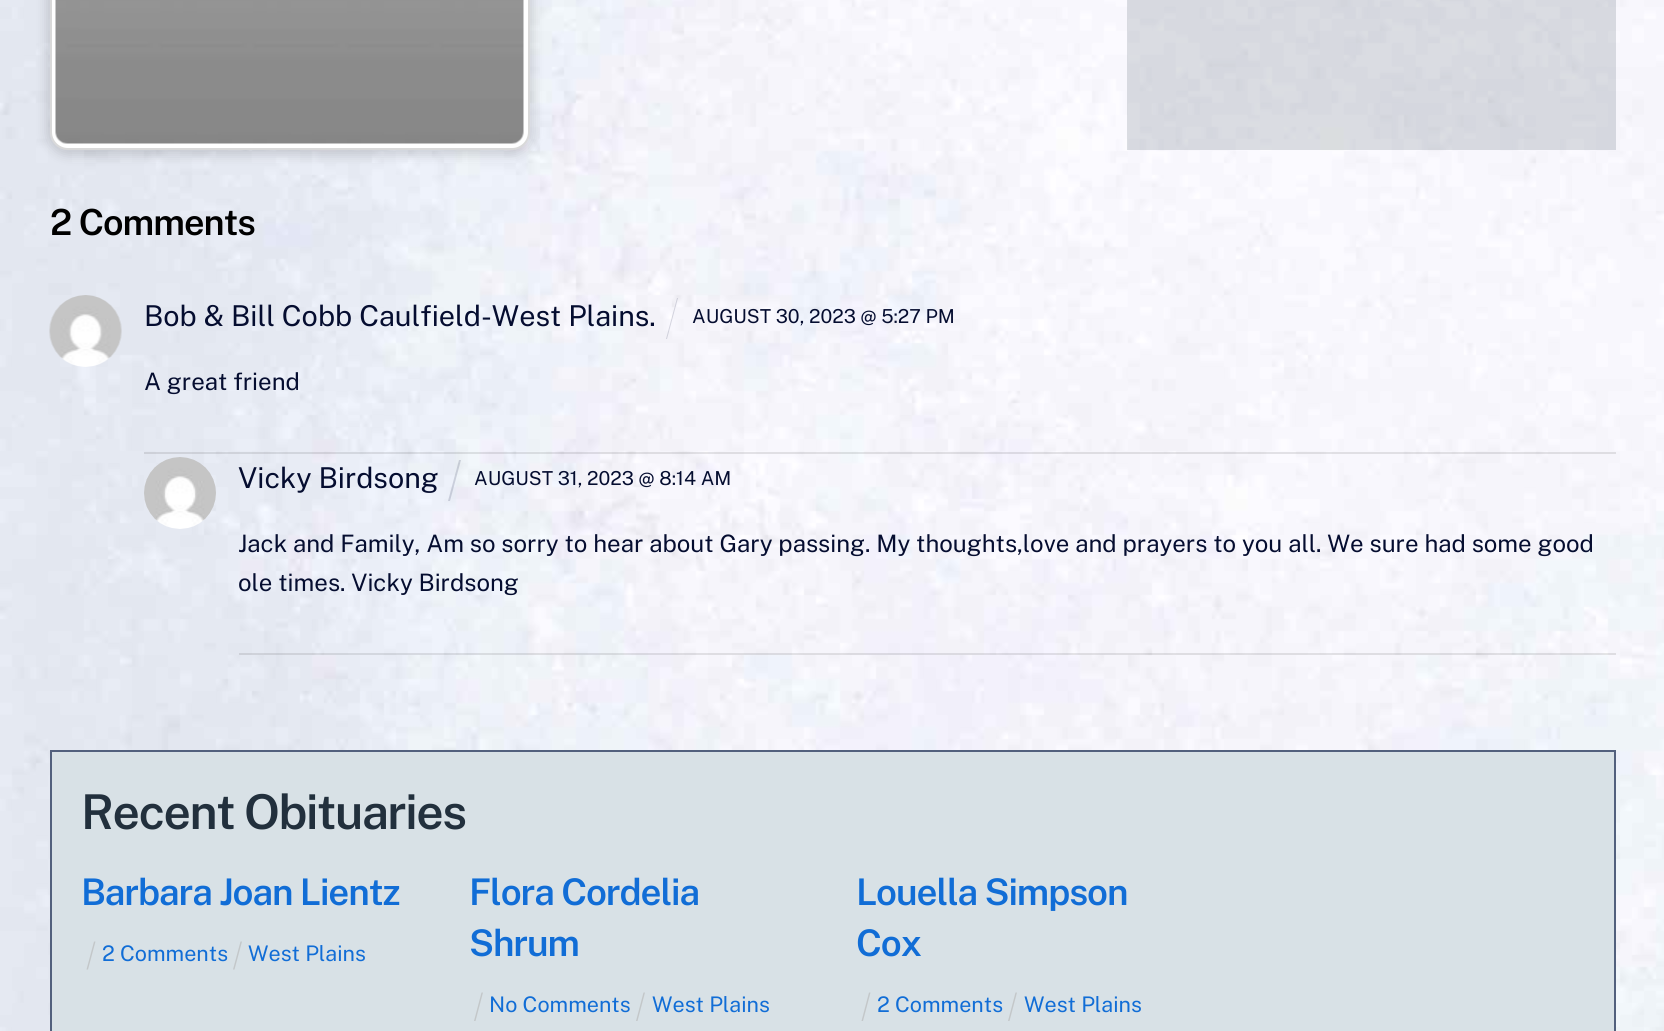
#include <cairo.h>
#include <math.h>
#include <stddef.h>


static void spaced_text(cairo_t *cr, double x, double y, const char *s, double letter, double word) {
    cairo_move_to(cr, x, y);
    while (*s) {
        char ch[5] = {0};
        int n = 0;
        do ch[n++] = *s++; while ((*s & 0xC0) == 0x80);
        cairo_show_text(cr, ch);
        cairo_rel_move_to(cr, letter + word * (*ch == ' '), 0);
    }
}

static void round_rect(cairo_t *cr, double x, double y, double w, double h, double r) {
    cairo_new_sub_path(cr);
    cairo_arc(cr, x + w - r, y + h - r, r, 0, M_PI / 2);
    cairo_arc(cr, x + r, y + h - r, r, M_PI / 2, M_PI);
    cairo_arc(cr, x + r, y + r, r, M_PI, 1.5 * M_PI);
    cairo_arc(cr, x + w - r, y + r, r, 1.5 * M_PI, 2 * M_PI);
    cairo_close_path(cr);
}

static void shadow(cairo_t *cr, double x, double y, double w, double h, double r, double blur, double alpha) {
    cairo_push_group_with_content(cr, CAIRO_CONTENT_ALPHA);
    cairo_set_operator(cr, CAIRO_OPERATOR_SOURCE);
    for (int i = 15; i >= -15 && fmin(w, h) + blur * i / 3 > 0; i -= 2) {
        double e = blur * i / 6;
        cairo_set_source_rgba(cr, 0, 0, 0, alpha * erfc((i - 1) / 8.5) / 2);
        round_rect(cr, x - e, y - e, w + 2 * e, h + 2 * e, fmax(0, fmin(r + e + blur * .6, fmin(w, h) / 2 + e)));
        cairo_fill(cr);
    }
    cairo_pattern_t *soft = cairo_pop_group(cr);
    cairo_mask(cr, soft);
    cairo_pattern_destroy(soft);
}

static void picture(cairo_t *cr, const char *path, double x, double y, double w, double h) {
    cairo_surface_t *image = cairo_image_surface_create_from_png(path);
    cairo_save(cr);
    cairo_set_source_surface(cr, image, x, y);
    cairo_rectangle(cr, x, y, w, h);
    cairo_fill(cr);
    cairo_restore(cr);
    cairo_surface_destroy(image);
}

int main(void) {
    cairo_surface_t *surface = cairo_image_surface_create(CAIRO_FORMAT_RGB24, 1664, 1031);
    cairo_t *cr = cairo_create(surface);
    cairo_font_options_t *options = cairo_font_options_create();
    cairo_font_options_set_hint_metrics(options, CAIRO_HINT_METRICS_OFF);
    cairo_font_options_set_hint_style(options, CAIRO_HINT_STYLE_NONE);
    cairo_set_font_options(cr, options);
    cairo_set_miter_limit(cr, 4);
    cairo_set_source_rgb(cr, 1, 1, 1);
    cairo_paint(cr);
    picture(cr, "img1.png", 0, 0, 1664, 1031);
    cairo_set_source_rgb(cr, 0, 0, 0);
    shadow(cr, 47, -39, 486, 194, 21, 6, 0.15);
    cairo_set_source_rgb(cr, 1, 1, 1);
    round_rect(cr, 50, -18, 480, 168, 18);
    cairo_fill(cr);
    round_rect(cr, 51, -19, 478, 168, 17);
    cairo_set_source_rgba(cr, 0, 0, 0, 0.15);
    cairo_stroke(cr);
    picture(cr, "img2.png", 55, 0, 469, 144);
    cairo_set_source_rgba(cr, 0.129, 0.188, 0.239, 0.15);
    cairo_rectangle(cr, 1127, 0, 489, 150);
    cairo_fill(cr);
    cairo_select_font_face(cr, "Public Sans SemiBold", CAIRO_FONT_SLANT_NORMAL, CAIRO_FONT_WEIGHT_NORMAL);
    cairo_set_font_size(cr, 36);
    cairo_set_source_rgb(cr, 0, 0, 0);
    spaced_text(cr, 50, 235, "2 Comments", -1, 0);
    picture(cr, "img3.png", 49, 295, 73, 72);
    cairo_select_font_face(cr, "Public Sans", CAIRO_FONT_SLANT_NORMAL, CAIRO_FONT_WEIGHT_NORMAL);
    cairo_set_font_size(cr, 28.75);
    cairo_set_source_rgb(cr, 0.02, 0.051, 0.188);
    cairo_move_to(cr, 144, 326);
    cairo_show_text(cr, "Bob & Bill Cobb Caulfield-West Plains.");
    cairo_set_source_rgba(cr, 0.02, 0.051, 0.188, 0.15);
    cairo_new_path(cr);
    cairo_move_to(cr, 677, 298);
    cairo_line_to(cr, 678, 298);
    cairo_line_to(cr, 667, 339);
    cairo_line_to(cr, 666, 339);
    cairo_close_path(cr);
    cairo_fill(cr);
    cairo_set_font_size(cr, 19.25);
    cairo_set_source_rgb(cr, 0.02, 0.051, 0.188);
    cairo_move_to(cr, 692, 323);
    cairo_show_text(cr, "AUGUST 30, 2023 @ 5:27 PM");
    cairo_set_source_rgba(cr, 0, 0, 0, 0.1);
    cairo_rectangle(cr, 144, 452, 1472, 2);
    cairo_fill(cr);
    cairo_set_font_size(cr, 24);
    cairo_set_source_rgb(cr, 0.02, 0.051, 0.188);
    cairo_move_to(cr, 144, 390);
    cairo_show_text(cr, "A great friend");
    picture(cr, "img4.png", 144, 457, 72, 72);
    cairo_set_font_size(cr, 28.75);
    cairo_move_to(cr, 238, 488);
    cairo_show_text(cr, "Vicky Birdsong");
    cairo_set_source_rgba(cr, 0.02, 0.051, 0.188, 0.15);
    cairo_new_path(cr);
    cairo_move_to(cr, 459, 460);
    cairo_line_to(cr, 461, 460);
    cairo_line_to(cr, 450, 501);
    cairo_line_to(cr, 448, 501);
    cairo_close_path(cr);
    cairo_fill(cr);
    cairo_set_font_size(cr, 19.25);
    cairo_set_source_rgb(cr, 0.02, 0.051, 0.188);
    cairo_move_to(cr, 474, 485);
    cairo_show_text(cr, "AUGUST 31, 2023 @ 8:14 AM");
    cairo_set_source_rgba(cr, 0, 0, 0, 0.1);
    cairo_rectangle(cr, 239, 653, 1377, 2);
    cairo_fill(cr);
    cairo_set_font_size(cr, 24);
    cairo_set_source_rgb(cr, 0.02, 0.051, 0.188);
    cairo_move_to(cr, 238, 552);
    cairo_show_text(cr, "Jack and Family, Am so sorry to hear about Gary passing. My thoughts,love and prayers to you all. We sure had some good");
    cairo_move_to(cr, 238, 591);
    cairo_show_text(cr, "ole times. Vicky Birdsong");
    cairo_set_source_rgb(cr, 0.847, 0.882, 0.902);
    cairo_rectangle(cr, 51, 751, 1564, 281);
    cairo_fill_preserve(cr);
    cairo_set_source_rgb(cr, 0.322, 0.376, 0.49);
    cairo_stroke(cr);
    cairo_select_font_face(cr, "Public Sans SemiBold", CAIRO_FONT_SLANT_NORMAL, CAIRO_FONT_WEIGHT_NORMAL);
    cairo_set_font_size(cr, 48);
    cairo_set_source_rgb(cr, 0.133, 0.188, 0.239);
    spaced_text(cr, 81, 829, "Recent Obituaries", -1.4, 0);
    cairo_set_font_size(cr, 36.75);
    cairo_set_source_rgb(cr, 0.067, 0.427, 0.839);
    spaced_text(cr, 81, 905, "Barbara Joan Lientz", -1.1, 0);
    cairo_set_source_rgb(cr, 0.765, 0.78, 0.788);
    cairo_new_path(cr);
    cairo_move_to(cr, 94, 941.5);
    cairo_line_to(cr, 95.5, 941.5);
    cairo_line_to(cr, 88, 969.5);
    cairo_line_to(cr, 86.5, 969.5);
    cairo_close_path(cr);
    cairo_fill(cr);
    cairo_select_font_face(cr, "Public Sans", CAIRO_FONT_SLANT_NORMAL, CAIRO_FONT_WEIGHT_NORMAL);
    cairo_set_font_size(cr, 21.5);
    cairo_set_source_rgb(cr, 0.067, 0.427, 0.839);
    cairo_move_to(cr, 102, 961);
    cairo_show_text(cr, "2 Comments");
    cairo_set_source_rgb(cr, 0.765, 0.78, 0.788);
    cairo_new_path(cr);
    cairo_move_to(cr, 240.5, 941.5);
    cairo_line_to(cr, 242, 941.5);
    cairo_line_to(cr, 234.5, 969.5);
    cairo_line_to(cr, 233, 969.5);
    cairo_close_path(cr);
    cairo_fill(cr);
    cairo_set_source_rgb(cr, 0.067, 0.427, 0.839);
    cairo_move_to(cr, 248, 961);
    cairo_show_text(cr, "West Plains");
    cairo_select_font_face(cr, "Public Sans SemiBold", CAIRO_FONT_SLANT_NORMAL, CAIRO_FONT_WEIGHT_NORMAL);
    cairo_set_font_size(cr, 36.75);
    spaced_text(cr, 469, 905, "Flora Cordelia", -1.1, 0);
    spaced_text(cr, 469, 956, "Shrum", -1.1, 0);
    cairo_set_source_rgb(cr, 0.765, 0.78, 0.788);
    cairo_new_path(cr);
    cairo_move_to(cr, 481.5, 992.5);
    cairo_line_to(cr, 483, 992.5);
    cairo_line_to(cr, 475.5, 1021);
    cairo_line_to(cr, 474, 1021);
    cairo_close_path(cr);
    cairo_fill(cr);
    cairo_select_font_face(cr, "Public Sans", CAIRO_FONT_SLANT_NORMAL, CAIRO_FONT_WEIGHT_NORMAL);
    cairo_set_font_size(cr, 21.5);
    cairo_set_source_rgb(cr, 0.067, 0.427, 0.839);
    cairo_move_to(cr, 489, 1012);
    cairo_show_text(cr, "No Comments");
    cairo_set_source_rgb(cr, 0.765, 0.78, 0.788);
    cairo_new_path(cr);
    cairo_move_to(cr, 643.5, 992.5);
    cairo_line_to(cr, 645, 992.5);
    cairo_line_to(cr, 637.5, 1021);
    cairo_line_to(cr, 636, 1021);
    cairo_close_path(cr);
    cairo_fill(cr);
    cairo_set_source_rgb(cr, 0.067, 0.427, 0.839);
    cairo_move_to(cr, 652, 1012);
    cairo_show_text(cr, "West Plains");
    cairo_select_font_face(cr, "Public Sans SemiBold", CAIRO_FONT_SLANT_NORMAL, CAIRO_FONT_WEIGHT_NORMAL);
    cairo_set_font_size(cr, 36.75);
    spaced_text(cr, 856, 905, "Louella Simpson", -1.1, 0);
    spaced_text(cr, 856, 956, "Cox", -1.1, 0);
    cairo_set_source_rgb(cr, 0.765, 0.78, 0.788);
    cairo_new_path(cr);
    cairo_move_to(cr, 869, 992.5);
    cairo_line_to(cr, 870.5, 992.5);
    cairo_line_to(cr, 863, 1021);
    cairo_line_to(cr, 861.5, 1021);
    cairo_close_path(cr);
    cairo_fill(cr);
    cairo_select_font_face(cr, "Public Sans", CAIRO_FONT_SLANT_NORMAL, CAIRO_FONT_WEIGHT_NORMAL);
    cairo_set_font_size(cr, 21.5);
    cairo_set_source_rgb(cr, 0.067, 0.427, 0.839);
    cairo_move_to(cr, 877, 1012);
    cairo_show_text(cr, "2 Comments");
    cairo_set_source_rgb(cr, 0.765, 0.78, 0.788);
    cairo_new_path(cr);
    cairo_move_to(cr, 1015.5, 992.5);
    cairo_line_to(cr, 1017, 992.5);
    cairo_line_to(cr, 1009.5, 1021);
    cairo_line_to(cr, 1008, 1021);
    cairo_close_path(cr);
    cairo_fill(cr);
    cairo_set_source_rgb(cr, 0.067, 0.427, 0.839);
    cairo_move_to(cr, 1024, 1012);
    cairo_show_text(cr, "West Plains");
    cairo_surface_write_to_png(surface, "page.png");
    cairo_font_options_destroy(options);
    cairo_destroy(cr);
    cairo_surface_destroy(surface);
    return 0;
}
